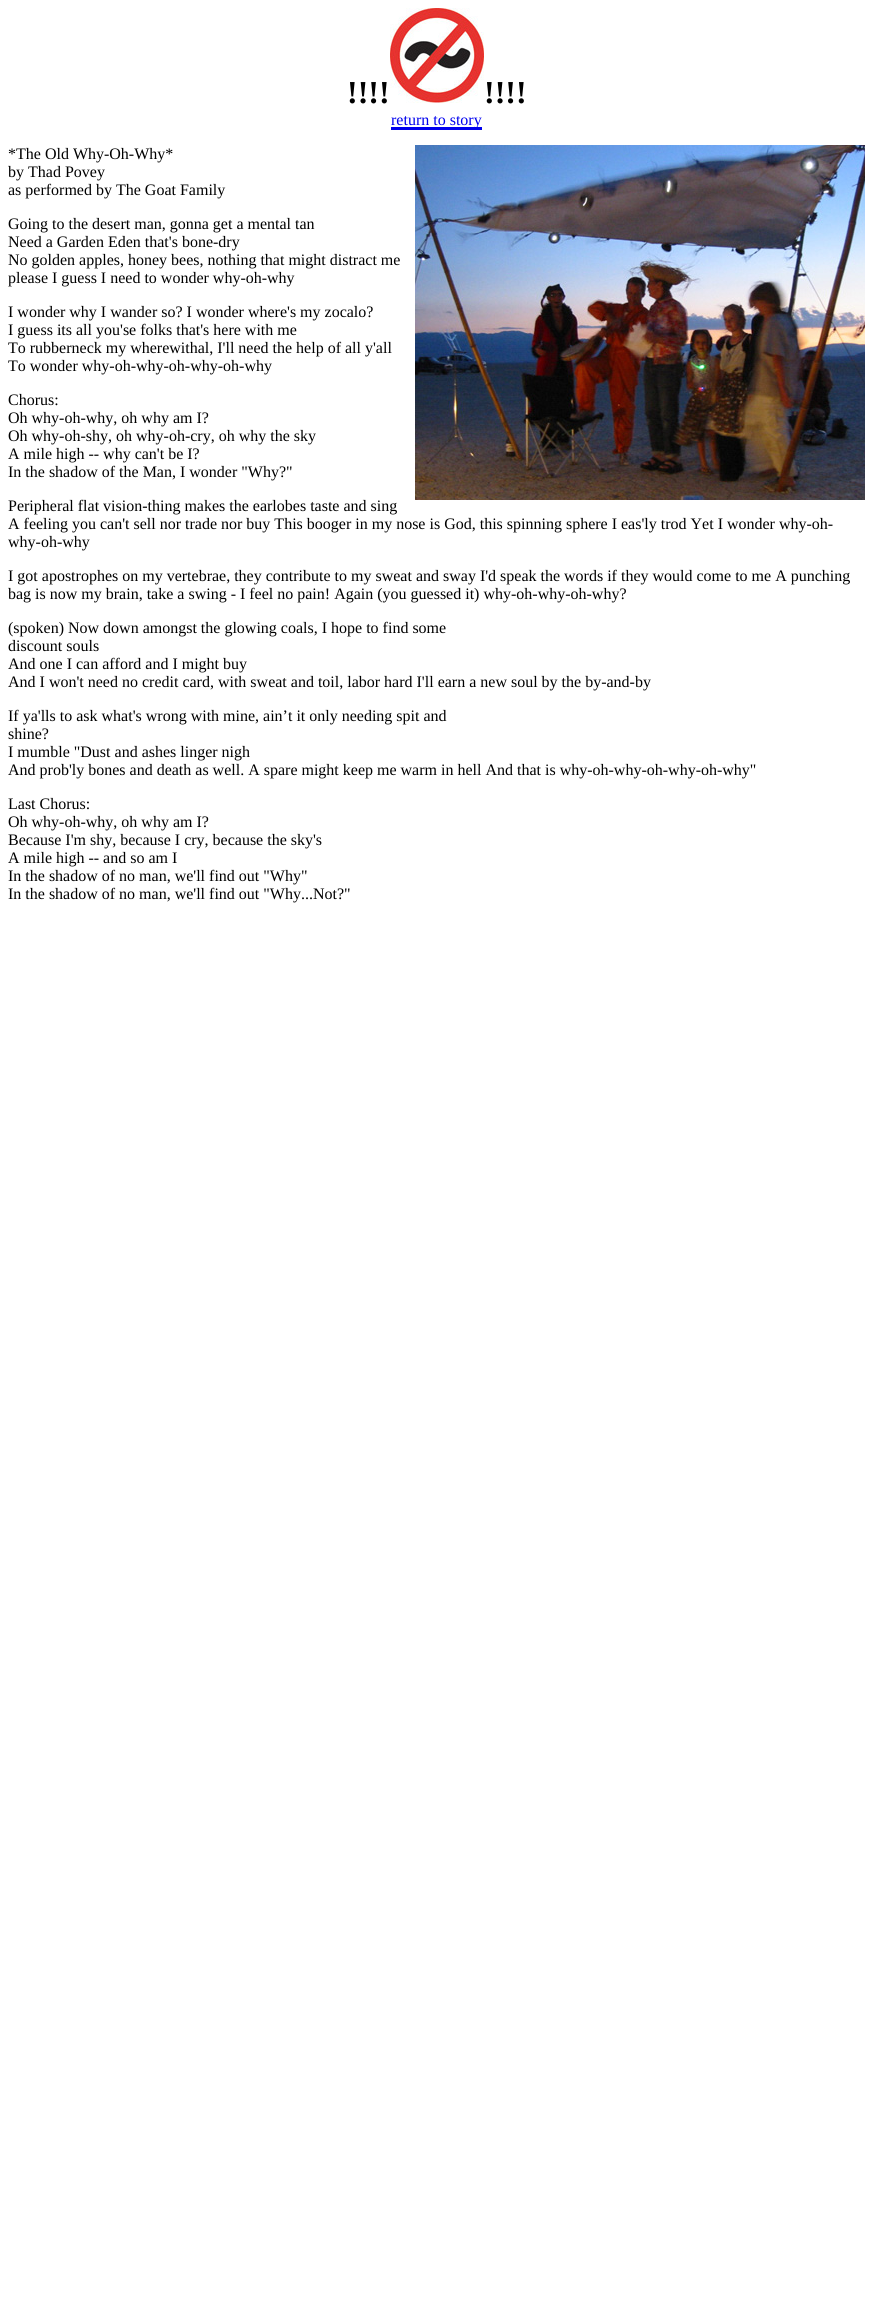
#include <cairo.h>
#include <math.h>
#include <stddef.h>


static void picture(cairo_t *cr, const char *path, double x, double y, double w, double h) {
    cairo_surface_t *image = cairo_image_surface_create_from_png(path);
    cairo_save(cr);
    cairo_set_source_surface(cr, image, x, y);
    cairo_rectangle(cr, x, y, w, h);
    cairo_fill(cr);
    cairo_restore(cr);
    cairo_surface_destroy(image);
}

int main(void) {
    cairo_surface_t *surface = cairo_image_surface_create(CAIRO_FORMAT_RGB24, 873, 2312);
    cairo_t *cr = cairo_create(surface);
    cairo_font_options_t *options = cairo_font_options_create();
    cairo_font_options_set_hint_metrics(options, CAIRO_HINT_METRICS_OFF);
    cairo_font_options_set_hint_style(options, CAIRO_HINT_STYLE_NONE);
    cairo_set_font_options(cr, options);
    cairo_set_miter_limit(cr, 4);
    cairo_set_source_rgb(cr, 1, 1, 1);
    cairo_paint(cr);
    cairo_select_font_face(cr, "Liberation Serif", CAIRO_FONT_SLANT_NORMAL, CAIRO_FONT_WEIGHT_BOLD);
    cairo_set_font_size(cr, 32);
    cairo_set_source_rgb(cr, 0, 0, 0);
    cairo_move_to(cr, 347, 103);
    cairo_show_text(cr, "!!!!");
    picture(cr, "img1.png", 390, 8, 94, 95);
    cairo_move_to(cr, 484, 103);
    cairo_show_text(cr, "!!!!");
    cairo_set_source_rgb(cr, 0, 0, 0.933);
    cairo_rectangle(cr, 391, 127, 91, 3);
    cairo_fill(cr);
    cairo_select_font_face(cr, "Liberation Serif", CAIRO_FONT_SLANT_NORMAL, CAIRO_FONT_WEIGHT_NORMAL);
    cairo_set_font_size(cr, 16);
    cairo_move_to(cr, 391, 125);
    cairo_show_text(cr, "return to story");
    cairo_set_source_rgb(cr, 0, 0, 0);
    cairo_move_to(cr, 8, 159);
    cairo_show_text(cr, "*The Old Why-Oh-Why*");
    picture(cr, "img2.png", 415, 145, 450, 355);
    cairo_move_to(cr, 8, 177);
    cairo_show_text(cr, "by Thad Povey");
    cairo_move_to(cr, 8, 195);
    cairo_show_text(cr, "as performed by The Goat Family");
    cairo_move_to(cr, 8, 229);
    cairo_show_text(cr, "Going to the desert man, gonna get a mental tan");
    cairo_move_to(cr, 8, 247);
    cairo_show_text(cr, "Need a Garden Eden that's bone-dry");
    cairo_move_to(cr, 8, 265);
    cairo_show_text(cr, "No golden apples, honey bees, nothing that might distract me");
    cairo_move_to(cr, 8, 283);
    cairo_show_text(cr, "please I guess I need to wonder why-oh-why");
    cairo_move_to(cr, 8, 317);
    cairo_show_text(cr, "I wonder why I wander so? I wonder where's my zocalo?");
    cairo_move_to(cr, 8, 335);
    cairo_show_text(cr, "I guess its all you'se folks that's here with me");
    cairo_move_to(cr, 8, 353);
    cairo_show_text(cr, "To rubberneck my wherewithal, I'll need the help of all y'all");
    cairo_move_to(cr, 8, 371);
    cairo_show_text(cr, "To wonder why-oh-why-oh-why-oh-why");
    cairo_move_to(cr, 8, 405);
    cairo_show_text(cr, "Chorus:");
    cairo_move_to(cr, 8, 423);
    cairo_show_text(cr, "Oh why-oh-why, oh why am I?");
    cairo_move_to(cr, 8, 441);
    cairo_show_text(cr, "Oh why-oh-shy, oh why-oh-cry, oh why the sky");
    cairo_move_to(cr, 8, 459);
    cairo_show_text(cr, "A mile high -- why can't be I?");
    cairo_move_to(cr, 8, 477);
    cairo_show_text(cr, "In the shadow of the Man, I wonder \"Why?\"");
    cairo_move_to(cr, 8, 511);
    cairo_show_text(cr, "Peripheral flat vision-thing makes the earlobes taste and sing");
    cairo_move_to(cr, 8, 529);
    cairo_show_text(cr, "A feeling you can't sell nor trade nor buy This booger in my nose is God, this spinning sphere I eas'ly trod Yet I wonder why-oh-");
    cairo_move_to(cr, 8, 547);
    cairo_show_text(cr, "why-oh-why");
    cairo_move_to(cr, 8, 581);
    cairo_show_text(cr, "I got apostrophes on my vertebrae, they contribute to my sweat and sway I'd speak the words if they would come to me A punching");
    cairo_move_to(cr, 8, 599);
    cairo_show_text(cr, "bag is now my brain, take a swing - I feel no pain! Again (you guessed it) why-oh-why-oh-why?");
    cairo_move_to(cr, 8, 633);
    cairo_show_text(cr, "(spoken) Now down amongst the glowing coals, I hope to find some");
    cairo_move_to(cr, 8, 651);
    cairo_show_text(cr, "discount souls");
    cairo_move_to(cr, 8, 669);
    cairo_show_text(cr, "And one I can afford and I might buy");
    cairo_move_to(cr, 8, 687);
    cairo_show_text(cr, "And I won't need no credit card, with sweat and toil, labor hard I'll earn a new soul by the by-and-by");
    cairo_move_to(cr, 8, 721);
    cairo_show_text(cr, "If ya'lls to ask what's wrong with mine, ain’t it only needing spit and");
    cairo_move_to(cr, 8, 739);
    cairo_show_text(cr, "shine?");
    cairo_move_to(cr, 8, 757);
    cairo_show_text(cr, "I mumble \"Dust and ashes linger nigh");
    cairo_move_to(cr, 8, 775);
    cairo_show_text(cr, "And prob'ly bones and death as well. A spare might keep me warm in hell And that is why-oh-why-oh-why-oh-why\"");
    cairo_move_to(cr, 8, 809);
    cairo_show_text(cr, "Last Chorus:");
    cairo_move_to(cr, 8, 827);
    cairo_show_text(cr, "Oh why-oh-why, oh why am I?");
    cairo_move_to(cr, 8, 845);
    cairo_show_text(cr, "Because I'm shy, because I cry, because the sky's");
    cairo_move_to(cr, 8, 863);
    cairo_show_text(cr, "A mile high -- and so am I");
    cairo_move_to(cr, 8, 881);
    cairo_show_text(cr, "In the shadow of no man, we'll find out \"Why\"");
    cairo_move_to(cr, 8, 899);
    cairo_show_text(cr, "In the shadow of no man, we'll find out \"Why...Not?\"");
    cairo_surface_write_to_png(surface, "page.png");
    cairo_font_options_destroy(options);
    cairo_destroy(cr);
    cairo_surface_destroy(surface);
    return 0;
}
